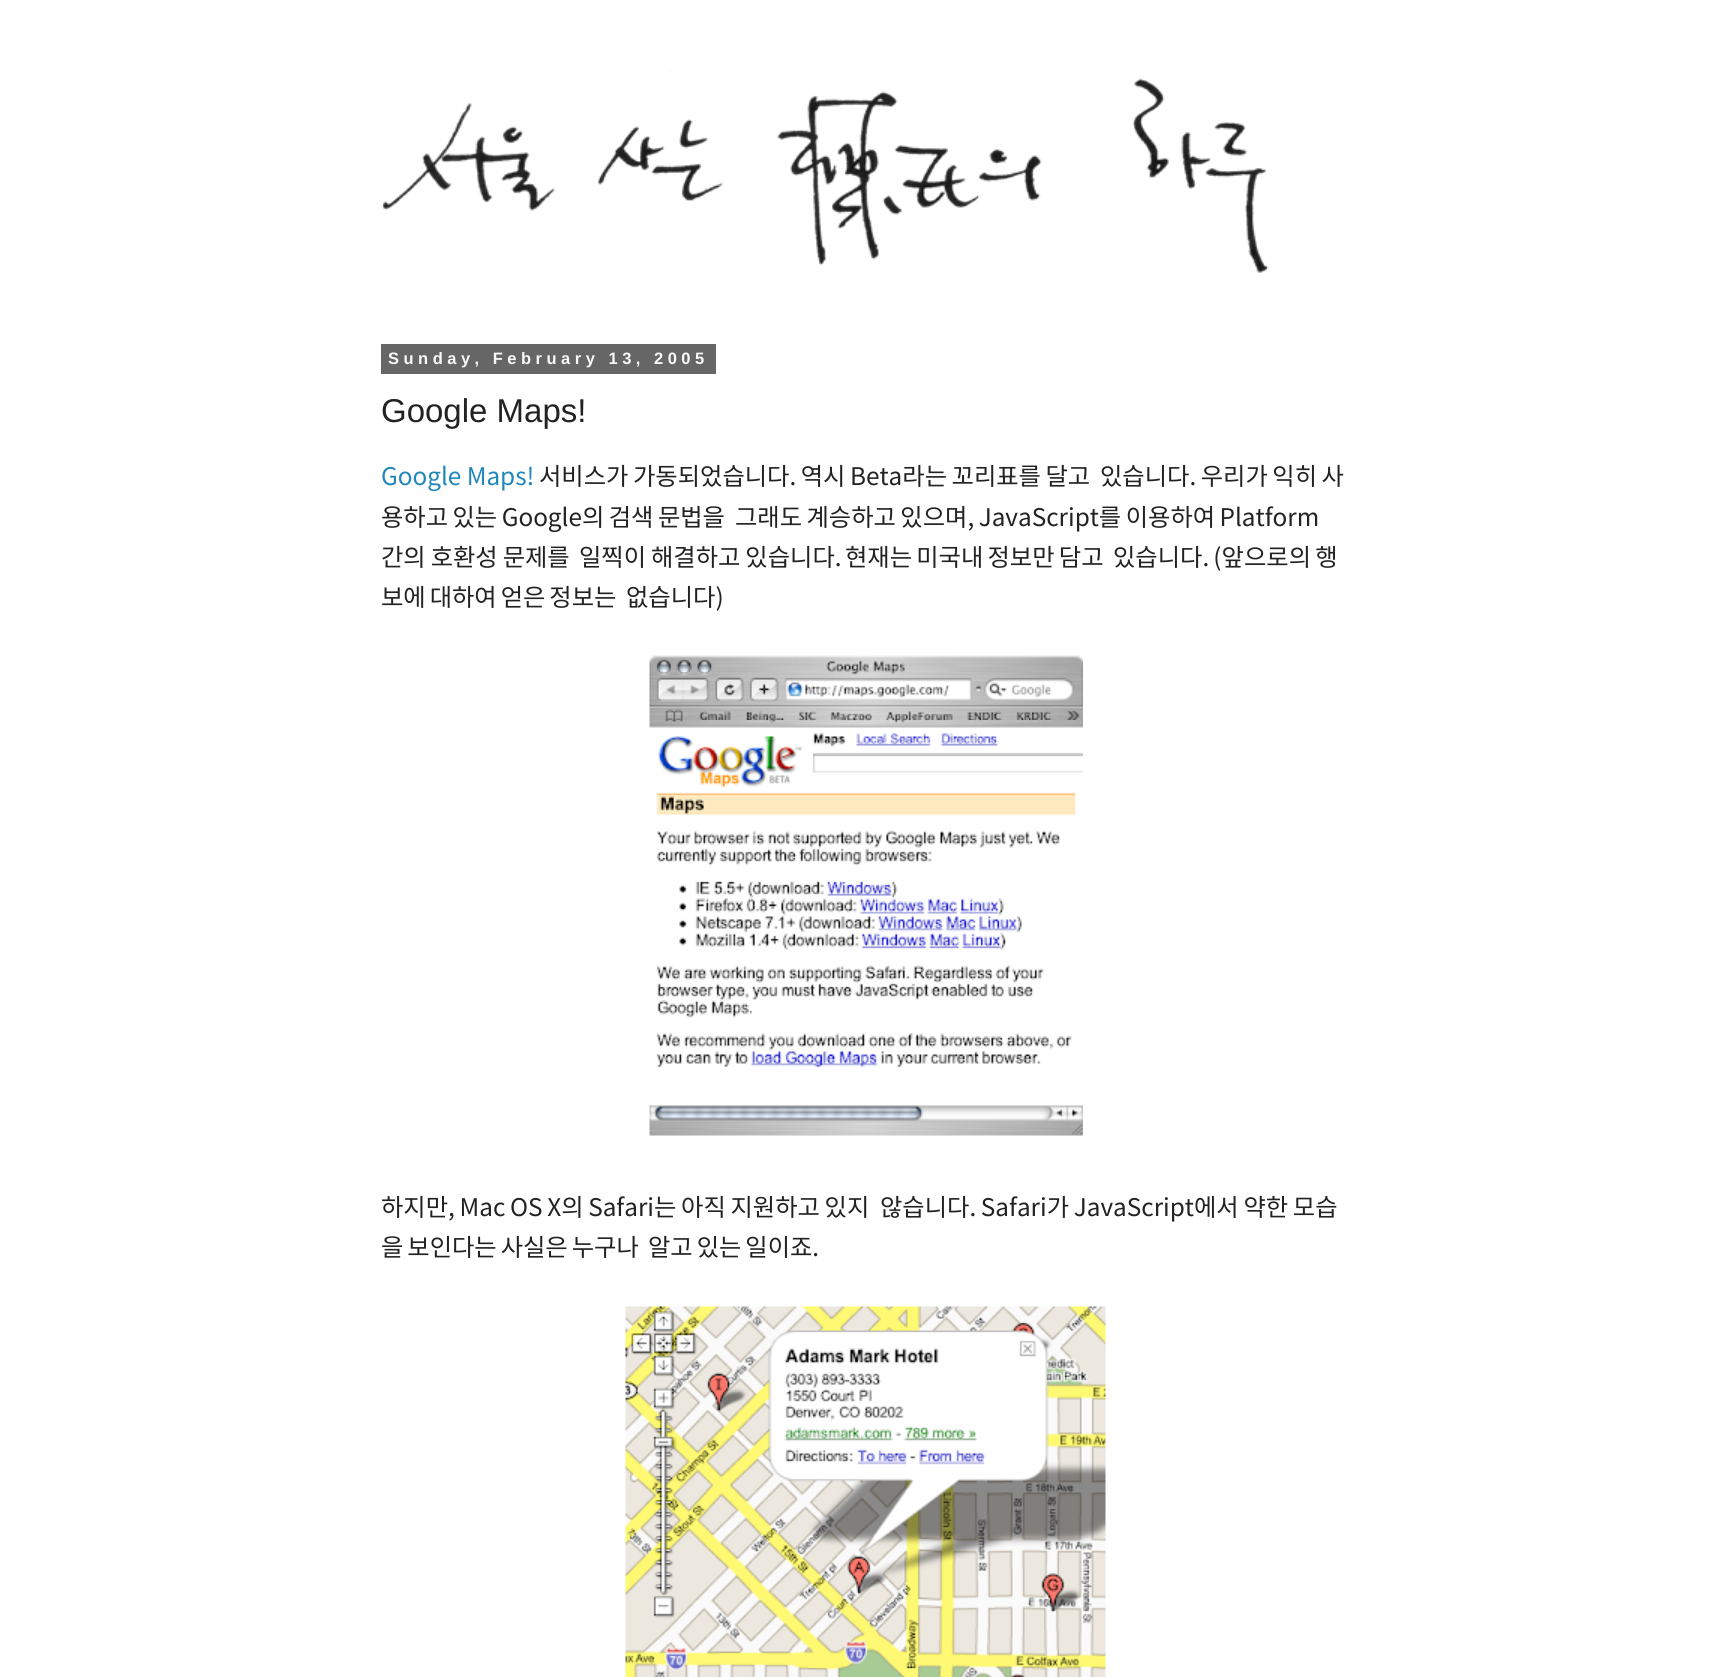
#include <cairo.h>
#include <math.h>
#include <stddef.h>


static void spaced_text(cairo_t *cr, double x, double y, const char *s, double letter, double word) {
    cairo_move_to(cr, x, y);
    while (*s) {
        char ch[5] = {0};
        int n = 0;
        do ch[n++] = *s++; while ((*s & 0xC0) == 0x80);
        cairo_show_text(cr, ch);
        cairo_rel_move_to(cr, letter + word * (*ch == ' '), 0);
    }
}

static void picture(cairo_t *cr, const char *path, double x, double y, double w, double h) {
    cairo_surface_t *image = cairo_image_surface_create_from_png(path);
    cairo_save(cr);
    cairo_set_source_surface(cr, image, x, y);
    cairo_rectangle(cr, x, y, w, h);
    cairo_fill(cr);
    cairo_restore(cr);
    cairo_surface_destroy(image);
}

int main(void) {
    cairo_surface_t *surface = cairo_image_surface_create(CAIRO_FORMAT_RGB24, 1731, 1677);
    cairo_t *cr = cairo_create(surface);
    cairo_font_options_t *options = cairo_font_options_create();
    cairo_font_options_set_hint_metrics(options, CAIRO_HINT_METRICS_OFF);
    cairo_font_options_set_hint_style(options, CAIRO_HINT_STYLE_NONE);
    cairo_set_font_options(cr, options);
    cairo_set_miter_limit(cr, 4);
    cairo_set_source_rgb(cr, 1, 1, 1);
    cairo_paint(cr);
    picture(cr, "img1.png", 381, 70, 888, 203);
    cairo_set_source_rgb(cr, 0.4, 0.4, 0.4);
    cairo_rectangle(cr, 381, 344, 335, 30);
    cairo_fill(cr);
    cairo_select_font_face(cr, "Liberation Sans", CAIRO_FONT_SLANT_NORMAL, CAIRO_FONT_WEIGHT_BOLD);
    cairo_set_font_size(cr, 16.5);
    cairo_set_source_rgb(cr, 0.976, 0.976, 0.976);
    spaced_text(cr, 388, 364, "Sunday, February 13, 2005", 4.5, 0);
    cairo_select_font_face(cr, "Liberation Sans", CAIRO_FONT_SLANT_NORMAL, CAIRO_FONT_WEIGHT_NORMAL);
    cairo_set_font_size(cr, 33);
    cairo_set_source_rgb(cr, 0.133, 0.133, 0.133);
    cairo_move_to(cr, 381, 422);
    cairo_show_text(cr, "Google Maps!");
    cairo_select_font_face(cr, "Noto Sans KR", CAIRO_FONT_SLANT_NORMAL, CAIRO_FONT_WEIGHT_NORMAL);
    cairo_set_font_size(cr, 24.3);
    cairo_set_source_rgb(cr, 0.129, 0.529, 0.733);
    cairo_move_to(cr, 381, 485);
    cairo_show_text(cr, "Google Maps!");
    cairo_set_source_rgb(cr, 0.133, 0.133, 0.133);
    spaced_text(cr, 539, 485, "서비스가 가동되었습니다. 역시 Beta라는 꼬리표를 달고", 0, -0.9);
    spaced_text(cr, 1100, 485, "있습니다. 우리가 익히 사", 0, -0.9);
    spaced_text(cr, 381, 526, "용하고 있는 Google의 검색 문법을", 0, -1);
    spaced_text(cr, 735, 526, "그래도 계승하고 있으며, JavaScript를 이용하여 Platform", 0, -1);
    spaced_text(cr, 381, 566, "간의 호환성 문제를", 0, -0.5);
    spaced_text(cr, 579, 566, "일찍이 해결하고 있습니다.", 0, -0.5);
    spaced_text(cr, 845, 566, "현재는 미국내 정보만 담고", 0, -1.25);
    spaced_text(cr, 1113, 566, "있습니다. (앞으로의 행", 0, -1.25);
    spaced_text(cr, 381, 606, "보에 대하여 얻은 정보는", 0, -1.5);
    spaced_text(cr, 626, 606, "없습니다)", 0, -1.5);
    picture(cr, "img2.png", 649, 655, 434, 481);
    spaced_text(cr, 381, 1216, "하지만, Mac OS X의 Safari는 아직 지원하고 있지", 0, -0.75);
    spaced_text(cr, 880, 1216, "않습니다. Safari가 JavaScript에서 약한 모습", 0, -0.75);
    spaced_text(cr, 381, 1256, "을 보인다는 사실은 누구나", 0, -1.5);
    spaced_text(cr, 648, 1256, "알고 있는 일이죠.", 0, -1.5);
    picture(cr, "img3.png", 625, 1306, 481, 371);
    cairo_surface_write_to_png(surface, "page.png");
    cairo_font_options_destroy(options);
    cairo_destroy(cr);
    cairo_surface_destroy(surface);
    return 0;
}
